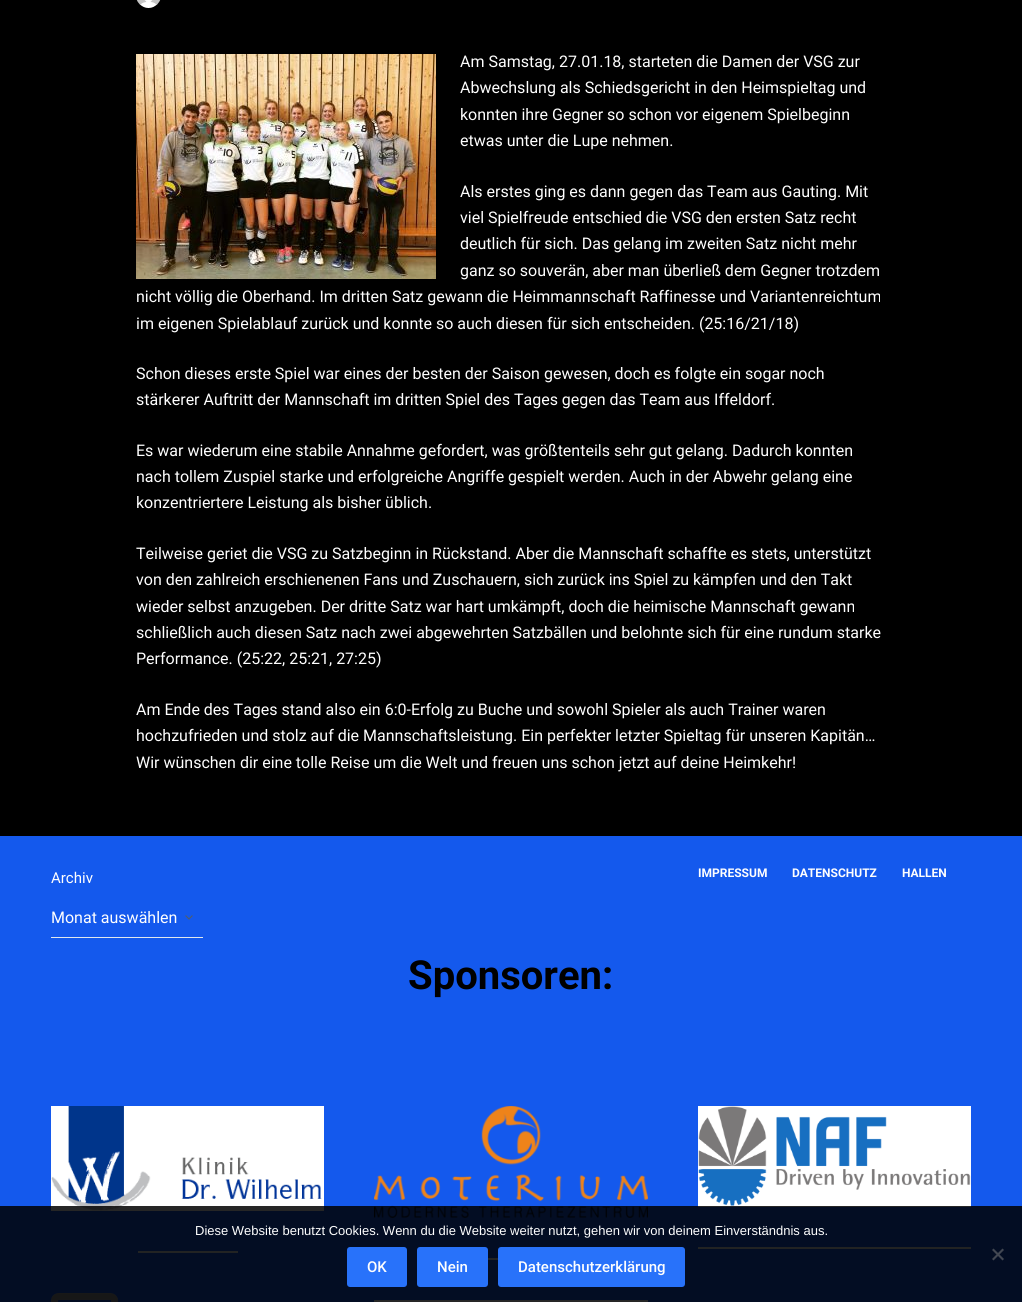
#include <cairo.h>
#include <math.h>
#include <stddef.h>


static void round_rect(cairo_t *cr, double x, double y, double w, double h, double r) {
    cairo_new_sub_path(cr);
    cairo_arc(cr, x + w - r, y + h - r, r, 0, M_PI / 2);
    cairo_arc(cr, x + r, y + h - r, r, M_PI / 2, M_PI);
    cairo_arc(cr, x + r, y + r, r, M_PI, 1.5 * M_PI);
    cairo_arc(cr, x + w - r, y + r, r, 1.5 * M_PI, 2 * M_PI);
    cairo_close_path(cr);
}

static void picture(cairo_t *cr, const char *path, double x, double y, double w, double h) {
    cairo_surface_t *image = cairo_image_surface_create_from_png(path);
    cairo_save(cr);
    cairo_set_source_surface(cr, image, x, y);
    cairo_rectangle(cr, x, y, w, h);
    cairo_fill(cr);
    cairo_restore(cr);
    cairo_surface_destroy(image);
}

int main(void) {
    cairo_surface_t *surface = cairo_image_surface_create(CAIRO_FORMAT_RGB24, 1022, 1302);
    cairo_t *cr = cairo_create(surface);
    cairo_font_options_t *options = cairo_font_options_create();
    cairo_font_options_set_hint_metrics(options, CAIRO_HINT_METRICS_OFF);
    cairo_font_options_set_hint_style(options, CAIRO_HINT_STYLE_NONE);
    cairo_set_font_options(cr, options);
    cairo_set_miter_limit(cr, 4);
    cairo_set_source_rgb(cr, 0, 0, 0);
    cairo_paint(cr);
    picture(cr, "img1.png", 136, 0, 25, 8);
    picture(cr, "img2.png", 136, 54, 300, 225);
    cairo_select_font_face(cr, "Roboto", CAIRO_FONT_SLANT_NORMAL, CAIRO_FONT_WEIGHT_NORMAL);
    cairo_set_font_size(cr, 16);
    cairo_set_source_rgb(cr, 0.996, 0.996, 0.996);
    cairo_move_to(cr, 460, 67);
    cairo_show_text(cr, "Am Samstag, 27.01.18, starteten die Damen der VSG zur");
    cairo_move_to(cr, 460, 93);
    cairo_show_text(cr, "Abwechslung als Schiedsgericht in den Heimspieltag und");
    cairo_move_to(cr, 460, 120);
    cairo_show_text(cr, "konnten ihre Gegner so schon vor eigenem Spielbeginn");
    cairo_move_to(cr, 460, 146);
    cairo_show_text(cr, "etwas unter die Lupe nehmen.");
    cairo_move_to(cr, 460, 197);
    cairo_show_text(cr, "Als erstes ging es dann gegen das Team aus Gauting. Mit");
    cairo_move_to(cr, 460, 223);
    cairo_show_text(cr, "viel Spielfreude entschied die VSG den ersten Satz recht");
    cairo_move_to(cr, 460, 249);
    cairo_show_text(cr, "deutlich für sich. Das gelang im zweiten Satz nicht mehr");
    cairo_move_to(cr, 460, 276);
    cairo_show_text(cr, "ganz so souverän, aber man überließ dem Gegner trotzdem");
    cairo_move_to(cr, 136, 302);
    cairo_show_text(cr, "nicht völlig die Oberhand. Im dritten Satz gewann die Heimmannschaft Raffinesse und Variantenreichtum");
    cairo_move_to(cr, 136, 329);
    cairo_show_text(cr, "im eigenen Spielablauf zurück und konnte so auch diesen für sich entscheiden. (25:16/21/18)");
    cairo_move_to(cr, 136, 379);
    cairo_show_text(cr, "Schon dieses erste Spiel war eines der besten der Saison gewesen, doch es folgte ein sogar noch");
    cairo_move_to(cr, 136, 405);
    cairo_show_text(cr, "stärkerer Auftritt der Mannschaft im dritten Spiel des Tages gegen das Team aus Iffeldorf.");
    cairo_move_to(cr, 136, 456);
    cairo_show_text(cr, "Es war wiederum eine stabile Annahme gefordert, was größtenteils sehr gut gelang. Dadurch konnten");
    cairo_move_to(cr, 136, 482);
    cairo_show_text(cr, "nach tollem Zuspiel starke und erfolgreiche Angriffe gespielt werden. Auch in der Abwehr gelang eine");
    cairo_move_to(cr, 136, 508);
    cairo_show_text(cr, "konzentriertere Leistung als bisher üblich.");
    cairo_move_to(cr, 136, 559);
    cairo_show_text(cr, "Teilweise geriet die VSG zu Satzbeginn in Rückstand. Aber die Mannschaft schaffte es stets, unterstützt");
    cairo_move_to(cr, 136, 585);
    cairo_show_text(cr, "von den zahlreich erschienenen Fans und Zuschauern, sich zurück ins Spiel zu kämpfen und den Takt");
    cairo_move_to(cr, 136, 612);
    cairo_show_text(cr, "wieder selbst anzugeben. Der dritte Satz war hart umkämpft, doch die heimische Mannschaft gewann");
    cairo_move_to(cr, 136, 638);
    cairo_show_text(cr, "schließlich auch diesen Satz nach zwei abgewehrten Satzbällen und belohnte sich für eine rundum starke");
    cairo_move_to(cr, 136, 664);
    cairo_show_text(cr, "Performance. (25:22, 25:21, 27:25)");
    cairo_move_to(cr, 136, 715);
    cairo_show_text(cr, "Am Ende des Tages stand also ein 6:0-Erfolg zu Buche und sowohl Spieler als auch Trainer waren");
    cairo_move_to(cr, 136, 741);
    cairo_show_text(cr, "hochzufrieden und stolz auf die Mannschaftsleistung. Ein perfekter letzter Spieltag für unseren Kapitän…");
    cairo_move_to(cr, 136, 768);
    cairo_show_text(cr, "Wir wünschen dir eine tolle Reise um die Welt und freuen uns schon jetzt auf deine Heimkehr!");
    cairo_set_source_rgb(cr, 0.082, 0.349, 0.929);
    cairo_rectangle(cr, 0, 836, 1022, 466);
    cairo_fill(cr);
    cairo_set_font_size(cr, 15);
    cairo_set_source_rgb(cr, 0.996, 0.996, 0.996);
    cairo_move_to(cr, 51, 883);
    cairo_show_text(cr, "Archiv");
    picture(cr, "img3.png", 185, 915, 8, 5);
    cairo_set_source_rgb(cr, 0.882, 0.91, 0.929);
    cairo_rectangle(cr, 51, 937, 152, 1);
    cairo_fill(cr);
    cairo_set_font_size(cr, 16);
    cairo_set_source_rgb(cr, 0.996, 0.996, 0.996);
    cairo_move_to(cr, 51, 923);
    cairo_show_text(cr, "Monat auswählen");
    cairo_select_font_face(cr, "Roboto", CAIRO_FONT_SLANT_NORMAL, CAIRO_FONT_WEIGHT_BOLD);
    cairo_set_font_size(cr, 12);
    cairo_move_to(cr, 698, 877);
    cairo_show_text(cr, "IMPRESSUM");
    cairo_move_to(cr, 792, 877);
    cairo_show_text(cr, "DATENSCHUTZ");
    cairo_move_to(cr, 902, 877);
    cairo_show_text(cr, "HALLEN");
    cairo_set_font_size(cr, 40);
    cairo_set_source_rgb(cr, 0, 0, 0);
    cairo_move_to(cr, 408, 989);
    cairo_show_text(cr, "Sponsoren:");
    picture(cr, "img4.png", 51, 1106, 273, 105);
    cairo_set_source_rgb(cr, 0.882, 0.91, 0.929);
    cairo_rectangle(cr, 138, 1251, 100, 2);
    cairo_fill(cr);
    picture(cr, "img5.png", 51, 1293, 67, 9);
    picture(cr, "img6.png", 374, 1106, 274, 112);
    cairo_rectangle(cr, 488, 1258, 10, 2);
    cairo_fill(cr);
    picture(cr, "img7.png", 374, 1300, 274, 2);
    picture(cr, "img8.png", 698, 1106, 273, 101);
    cairo_rectangle(cr, 698, 1247, 273, 2);
    cairo_fill(cr);
    cairo_set_source_rgba(cr, 0, 0, 0, 0.85);
    cairo_rectangle(cr, 0, 1206, 1022, 96);
    cairo_fill(cr);
    cairo_select_font_face(cr, "Liberation Sans", CAIRO_FONT_SLANT_NORMAL, CAIRO_FONT_WEIGHT_NORMAL);
    cairo_set_font_size(cr, 13);
    cairo_set_source_rgb(cr, 0.996, 0.996, 0.996);
    cairo_move_to(cr, 195, 1235);
    cairo_show_text(cr, "Diese Website benutzt Cookies. Wenn du die Website weiter nutzt, gehen wir von deinem Einverständnis aus.");
    cairo_set_source_rgb(cr, 0.259, 0.278, 0.322);
    cairo_new_path(cr);
    cairo_move_to(cr, 1002.5, 1248.5);
    cairo_line_to(cr, 1004, 1250);
    cairo_line_to(cr, 993.5, 1260.5);
    cairo_line_to(cr, 992, 1259);
    cairo_close_path(cr);
    cairo_fill(cr);
    cairo_new_path(cr);
    cairo_move_to(cr, 992, 1250);
    cairo_line_to(cr, 993.5, 1248.5);
    cairo_line_to(cr, 1004, 1259);
    cairo_line_to(cr, 1002.5, 1260.5);
    cairo_close_path(cr);
    cairo_fill(cr);
    cairo_set_source_rgb(cr, 0.157, 0.447, 0.98);
    round_rect(cr, 347, 1247, 60, 40, 3);
    cairo_fill(cr);
    cairo_select_font_face(cr, "Roboto Medium", CAIRO_FONT_SLANT_NORMAL, CAIRO_FONT_WEIGHT_NORMAL);
    cairo_set_font_size(cr, 15);
    cairo_set_source_rgb(cr, 0.996, 0.996, 0.996);
    cairo_move_to(cr, 367, 1272);
    cairo_show_text(cr, "OK");
    cairo_set_source_rgb(cr, 0.157, 0.447, 0.98);
    round_rect(cr, 417, 1247, 71, 40, 3);
    cairo_fill(cr);
    cairo_set_source_rgb(cr, 0.996, 0.996, 0.996);
    cairo_move_to(cr, 437, 1272);
    cairo_show_text(cr, "Nein");
    cairo_set_source_rgb(cr, 0.157, 0.447, 0.98);
    round_rect(cr, 498, 1247, 187, 40, 3);
    cairo_fill(cr);
    cairo_set_source_rgb(cr, 0.996, 0.996, 0.996);
    cairo_move_to(cr, 518, 1272);
    cairo_show_text(cr, "Datenschutzerklärung");
    cairo_surface_write_to_png(surface, "page.png");
    cairo_font_options_destroy(options);
    cairo_destroy(cr);
    cairo_surface_destroy(surface);
    return 0;
}
